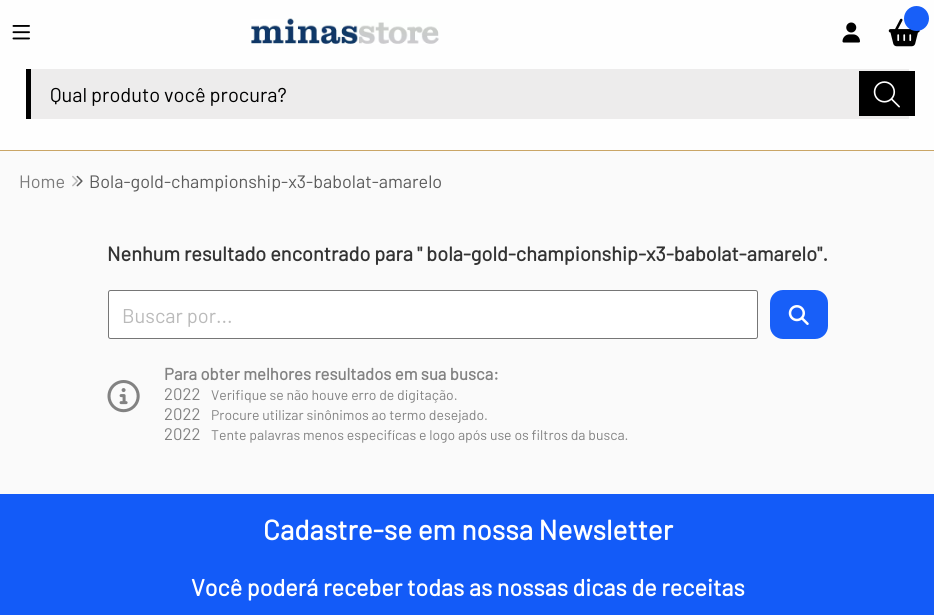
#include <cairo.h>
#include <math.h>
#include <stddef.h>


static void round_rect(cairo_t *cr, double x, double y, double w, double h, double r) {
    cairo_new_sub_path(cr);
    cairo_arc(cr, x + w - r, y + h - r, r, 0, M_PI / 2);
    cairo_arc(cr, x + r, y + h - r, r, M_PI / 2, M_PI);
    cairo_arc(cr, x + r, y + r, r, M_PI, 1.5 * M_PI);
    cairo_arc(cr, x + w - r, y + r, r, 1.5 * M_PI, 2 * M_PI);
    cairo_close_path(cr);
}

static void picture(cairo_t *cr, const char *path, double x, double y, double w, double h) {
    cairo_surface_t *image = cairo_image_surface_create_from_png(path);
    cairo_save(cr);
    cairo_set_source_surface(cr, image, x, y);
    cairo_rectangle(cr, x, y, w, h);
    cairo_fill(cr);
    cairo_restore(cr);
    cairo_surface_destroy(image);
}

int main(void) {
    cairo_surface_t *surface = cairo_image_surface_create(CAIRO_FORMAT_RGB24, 934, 615);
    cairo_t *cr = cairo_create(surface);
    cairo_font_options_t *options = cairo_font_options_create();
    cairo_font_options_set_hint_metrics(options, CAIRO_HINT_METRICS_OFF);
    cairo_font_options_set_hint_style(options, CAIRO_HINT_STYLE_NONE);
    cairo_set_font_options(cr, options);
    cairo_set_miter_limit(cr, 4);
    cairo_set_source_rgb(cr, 0.98, 0.98, 0.98);
    cairo_paint(cr);
    cairo_set_source_rgb(cr, 0.996, 0.996, 0.996);
    cairo_rectangle(cr, 0, 0, 934, 150);
    cairo_fill(cr);
    picture(cr, "img1.png", 12, 25, 18, 15);
    picture(cr, "img2.png", 251, 18, 188, 26);
    picture(cr, "img3.png", 842, 22, 18, 21);
    picture(cr, "img4.png", 888, 18, 32, 29);
    cairo_set_source_rgb(cr, 0.094, 0.373, 0.969);
    cairo_arc(cr, 916.5, 18.5, 12.5, 0, 2 * M_PI);
    cairo_fill(cr);
    cairo_set_source_rgb(cr, 0.929, 0.925, 0.925);
    cairo_rectangle(cr, 31, 69, 878, 50);
    cairo_fill(cr);
    cairo_set_source_rgb(cr, 0, 0, 0);
    cairo_rectangle(cr, 26, 69, 5, 50);
    cairo_fill(cr);
    cairo_select_font_face(cr, "Barlow", CAIRO_FONT_SLANT_NORMAL, CAIRO_FONT_WEIGHT_NORMAL);
    cairo_set_font_size(cr, 20);
    cairo_move_to(cr, 50, 102);
    cairo_show_text(cr, "Qual produto você procura?");
    cairo_rectangle(cr, 859, 71, 56, 45);
    cairo_fill(cr);
    picture(cr, "img5.png", 873, 81, 27, 27);
    cairo_set_source_rgb(cr, 0.788, 0.647, 0.4);
    cairo_rectangle(cr, 0, 150, 934, 1);
    cairo_fill(cr);
    cairo_set_font_size(cr, 18);
    cairo_set_source_rgb(cr, 0.482, 0.482, 0.482);
    cairo_move_to(cr, 19, 188);
    cairo_show_text(cr, "Home");
    picture(cr, "img6.png", 72, 175, 11, 12);
    cairo_set_source_rgb(cr, 0.357, 0.357, 0.357);
    cairo_move_to(cr, 89, 188);
    cairo_show_text(cr, "Bola-gold-championship-x3-babolat-amarelo");
    cairo_select_font_face(cr, "Barlow", CAIRO_FONT_SLANT_NORMAL, CAIRO_FONT_WEIGHT_BOLD);
    cairo_set_font_size(cr, 20);
    cairo_set_source_rgb(cr, 0.2, 0.2, 0.2);
    cairo_move_to(cr, 107, 261);
    cairo_show_text(cr, "Nenhum resultado encontrado para \" bola-gold-championship-x3-babolat-amarelo\".");
    cairo_set_source_rgb(cr, 1, 1, 1);
    round_rect(cr, 108.5, 290.5, 649, 48, 2);
    cairo_fill_preserve(cr);
    cairo_set_source_rgb(cr, 0.463, 0.463, 0.463);
    cairo_set_line_width(cr, 1);
    cairo_stroke(cr);
    cairo_select_font_face(cr, "Barlow", CAIRO_FONT_SLANT_NORMAL, CAIRO_FONT_WEIGHT_NORMAL);
    cairo_set_source_rgb(cr, 0.729, 0.729, 0.729);
    cairo_move_to(cr, 122, 323);
    cairo_show_text(cr, "Buscar por...");
    cairo_set_source_rgb(cr, 0.094, 0.373, 0.969);
    round_rect(cr, 770, 290, 58, 49, 13);
    cairo_fill(cr);
    picture(cr, "img7.png", 788, 305, 21, 20);
    picture(cr, "img8.png", 107, 380, 33, 33);
    cairo_select_font_face(cr, "Barlow", CAIRO_FONT_SLANT_NORMAL, CAIRO_FONT_WEIGHT_BOLD);
    cairo_set_font_size(cr, 16.75);
    cairo_set_source_rgb(cr, 0.51, 0.51, 0.51);
    cairo_move_to(cr, 164, 380);
    cairo_show_text(cr, "Para obter melhores resultados em sua busca:");
    cairo_select_font_face(cr, "Barlow", CAIRO_FONT_SLANT_NORMAL, CAIRO_FONT_WEIGHT_NORMAL);
    cairo_move_to(cr, 164, 400);
    cairo_show_text(cr, "2022");
    cairo_set_font_size(cr, 14);
    cairo_move_to(cr, 211, 400);
    cairo_show_text(cr, "Verifique se não houve erro de digitação.");
    cairo_set_font_size(cr, 16.75);
    cairo_move_to(cr, 164, 420);
    cairo_show_text(cr, "2022");
    cairo_set_font_size(cr, 14);
    cairo_move_to(cr, 211, 420);
    cairo_show_text(cr, "Procure utilizar sinônimos ao termo desejado.");
    cairo_set_font_size(cr, 16.75);
    cairo_move_to(cr, 164, 440);
    cairo_show_text(cr, "2022");
    cairo_set_font_size(cr, 14);
    cairo_move_to(cr, 211, 440);
    cairo_show_text(cr, "Tente palavras menos especifícas e logo após use os filtros da busca.");
    cairo_set_source_rgb(cr, 0.075, 0.357, 0.969);
    cairo_rectangle(cr, 0, 494, 934, 121);
    cairo_fill(cr);
    cairo_select_font_face(cr, "Barlow", CAIRO_FONT_SLANT_NORMAL, CAIRO_FONT_WEIGHT_BOLD);
    cairo_set_font_size(cr, 28);
    cairo_set_source_rgb(cr, 1, 1, 1);
    cairo_move_to(cr, 263, 540);
    cairo_show_text(cr, "Cadastre-se em nossa Newsletter");
    cairo_set_font_size(cr, 23.4);
    cairo_move_to(cr, 191, 596);
    cairo_show_text(cr, "Você poderá receber todas as nossas dicas de receitas");
    cairo_surface_write_to_png(surface, "page.png");
    cairo_font_options_destroy(options);
    cairo_destroy(cr);
    cairo_surface_destroy(surface);
    return 0;
}
